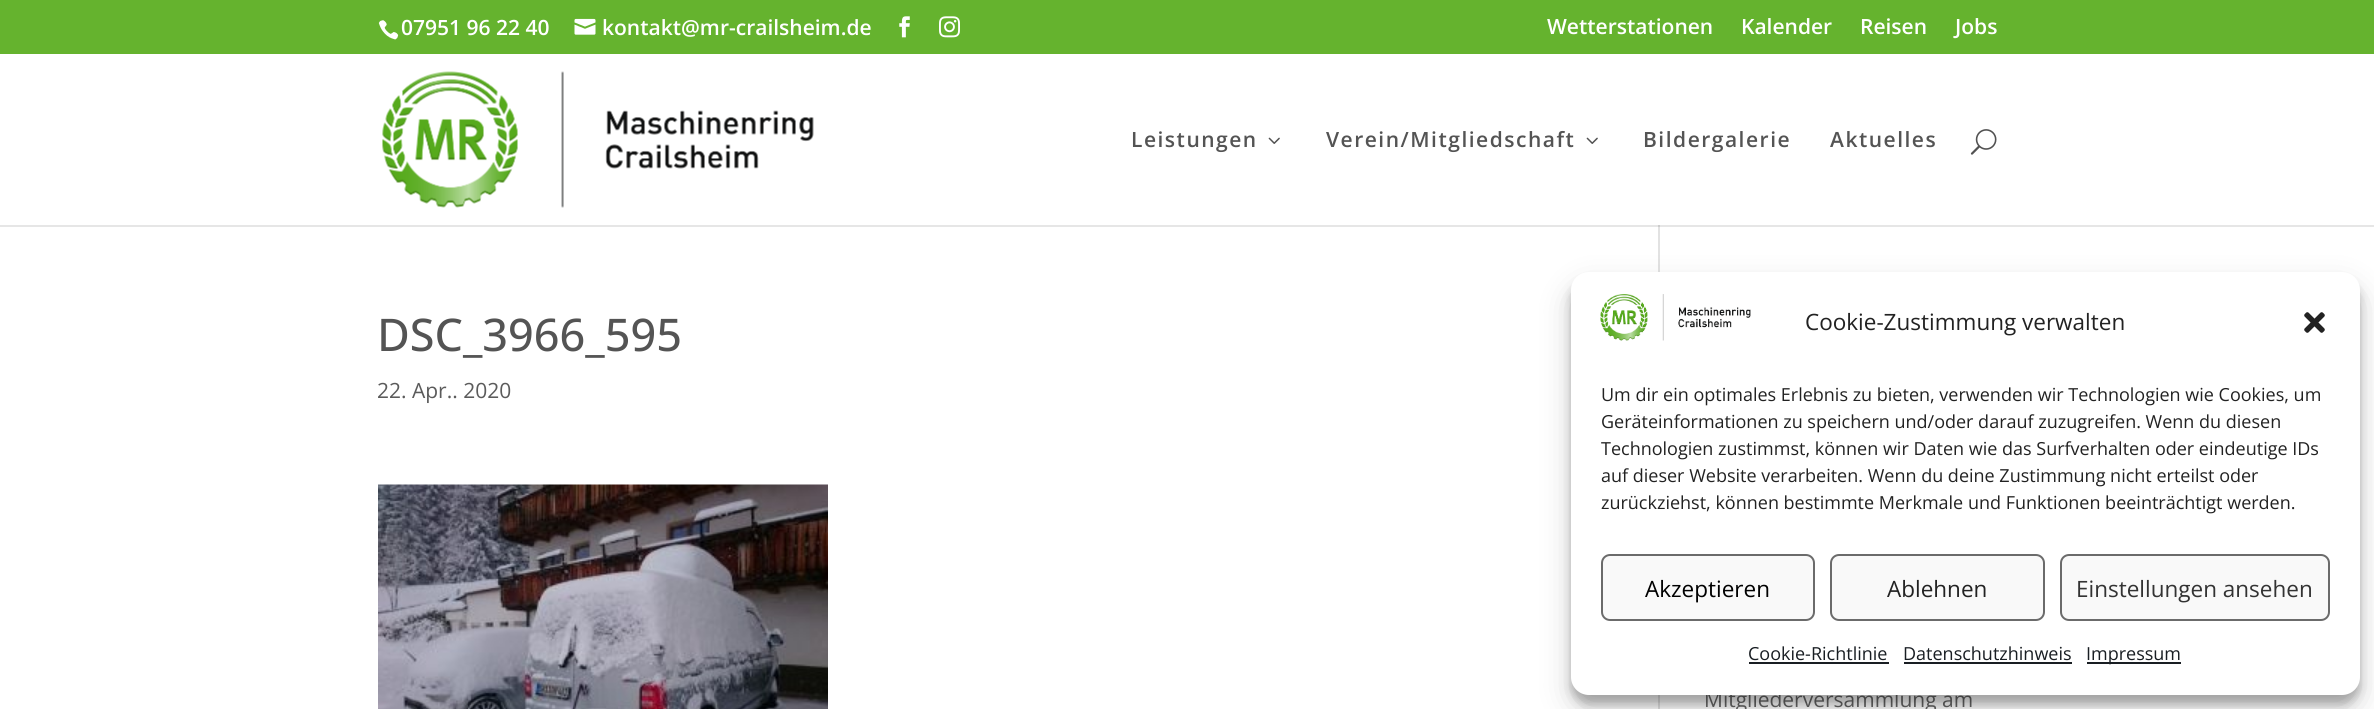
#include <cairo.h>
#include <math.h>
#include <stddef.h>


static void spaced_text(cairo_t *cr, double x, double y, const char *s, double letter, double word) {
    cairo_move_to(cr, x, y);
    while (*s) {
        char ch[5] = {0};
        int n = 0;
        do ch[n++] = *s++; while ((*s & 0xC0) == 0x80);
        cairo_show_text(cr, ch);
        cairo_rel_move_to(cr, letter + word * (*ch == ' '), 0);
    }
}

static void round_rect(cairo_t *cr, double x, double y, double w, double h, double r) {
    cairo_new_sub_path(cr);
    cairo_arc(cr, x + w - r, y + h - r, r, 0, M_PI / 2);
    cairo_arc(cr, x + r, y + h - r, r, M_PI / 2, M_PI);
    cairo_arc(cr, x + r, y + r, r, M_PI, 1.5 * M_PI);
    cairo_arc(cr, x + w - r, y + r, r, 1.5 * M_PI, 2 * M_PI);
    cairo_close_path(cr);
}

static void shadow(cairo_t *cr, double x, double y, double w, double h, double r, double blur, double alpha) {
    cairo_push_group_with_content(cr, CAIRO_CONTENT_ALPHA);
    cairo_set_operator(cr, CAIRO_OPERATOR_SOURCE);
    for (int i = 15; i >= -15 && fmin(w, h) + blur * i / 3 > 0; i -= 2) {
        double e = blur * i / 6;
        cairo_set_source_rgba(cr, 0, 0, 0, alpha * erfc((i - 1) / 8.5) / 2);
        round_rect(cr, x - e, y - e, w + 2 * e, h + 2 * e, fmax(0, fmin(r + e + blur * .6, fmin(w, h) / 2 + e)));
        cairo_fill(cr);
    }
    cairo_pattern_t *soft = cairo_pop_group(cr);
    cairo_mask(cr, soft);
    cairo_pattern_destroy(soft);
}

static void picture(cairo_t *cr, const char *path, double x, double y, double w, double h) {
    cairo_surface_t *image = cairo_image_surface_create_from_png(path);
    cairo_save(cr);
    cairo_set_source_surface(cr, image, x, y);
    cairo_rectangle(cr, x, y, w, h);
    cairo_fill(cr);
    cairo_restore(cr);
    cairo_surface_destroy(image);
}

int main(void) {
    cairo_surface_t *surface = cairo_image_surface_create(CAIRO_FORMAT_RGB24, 2374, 709);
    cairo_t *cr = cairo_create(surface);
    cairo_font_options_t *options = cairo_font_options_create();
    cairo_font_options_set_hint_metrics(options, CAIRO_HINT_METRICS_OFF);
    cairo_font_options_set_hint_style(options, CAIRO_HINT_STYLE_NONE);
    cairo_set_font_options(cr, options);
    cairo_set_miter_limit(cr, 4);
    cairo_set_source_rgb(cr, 1, 1, 1);
    cairo_paint(cr);
    cairo_set_source_rgb(cr, 0.396, 0.702, 0.18);
    cairo_rectangle(cr, 0, 0, 2374, 54);
    cairo_fill(cr);
    picture(cr, "img1.png", 378, 20, 21, 20);
    cairo_select_font_face(cr, "Open Sans SemiBold", CAIRO_FONT_SLANT_NORMAL, CAIRO_FONT_WEIGHT_NORMAL);
    cairo_set_font_size(cr, 21);
    cairo_set_source_rgb(cr, 1, 1, 1);
    cairo_move_to(cr, 401, 35);
    cairo_show_text(cr, "07951 96 22 40");
    picture(cr, "img2.png", 574, 18, 22, 17);
    cairo_move_to(cr, 602, 35);
    cairo_show_text(cr, "kontakt@mr-crailsheim.de");
    picture(cr, "img3.png", 899, 16, 11, 22);
    picture(cr, "img4.png", 939, 16, 21, 22);
    cairo_move_to(cr, 1547, 34);
    cairo_show_text(cr, "Wetterstationen");
    cairo_move_to(cr, 1741, 34);
    cairo_show_text(cr, "Kalender");
    cairo_move_to(cr, 1860, 34);
    cairo_show_text(cr, "Reisen");
    cairo_move_to(cr, 1955, 34);
    cairo_show_text(cr, "Jobs");
    cairo_set_source_rgb(cr, 0.886, 0.886, 0.886);
    cairo_rectangle(cr, 1658, 225, 2, 484);
    cairo_fill(cr);
    cairo_set_source_rgba(cr, 0, 0, 0, 0.1);
    cairo_new_path(cr);
    cairo_move_to(cr, 0, 225);
    cairo_line_to(cr, 0, 227);
    cairo_line_to(cr, 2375, 227);
    cairo_line_to(cr, 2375, 56);
    cairo_line_to(cr, 2374, 56);
    cairo_line_to(cr, 2374, 225);
    cairo_close_path(cr);
    cairo_fill(cr);
    picture(cr, "img5.png", 382, 71, 432, 137);
    cairo_set_source_rgb(cr, 0.329, 0.329, 0.329);
    spaced_text(cr, 1131, 147, "Leistungen", 1.5, 0);
    picture(cr, "img6.png", 1268, 137, 12, 7);
    spaced_text(cr, 1326, 147, "Verein/Mitgliedschaft", 1.5, 0);
    picture(cr, "img6.png", 1586, 137, 12, 7);
    spaced_text(cr, 1643, 147, "Bildergalerie", 1.5, 0);
    spaced_text(cr, 1830, 147, "Aktuelles", 1.5, 0);
    picture(cr, "img7.png", 1970, 129, 27, 26);
    cairo_select_font_face(cr, "Open Sans Medium", CAIRO_FONT_SLANT_NORMAL, CAIRO_FONT_WEIGHT_NORMAL);
    cairo_set_font_size(cr, 45);
    cairo_move_to(cr, 377, 351);
    cairo_show_text(cr, "DSC_3966_595");
    cairo_select_font_face(cr, "Open Sans", CAIRO_FONT_SLANT_NORMAL, CAIRO_FONT_WEIGHT_NORMAL);
    cairo_set_font_size(cr, 21);
    cairo_set_source_rgb(cr, 0.357, 0.357, 0.357);
    cairo_move_to(cr, 377, 398);
    cairo_show_text(cr, "22. Apr.. 2020");
    picture(cr, "img8.png", 378, 484, 450, 225);
    cairo_set_source_rgb(cr, 0.4, 0.4, 0.4);
    cairo_move_to(cr, 1704, 707);
    cairo_show_text(cr, "Mitgliederversammlung am");
    cairo_set_source_rgb(cr, 0, 0, 0);
    shadow(cr, 1571, 281, 789, 423, 18, 4.5, 0.23);
    shadow(cr, 1571, 287, 789, 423, 18, 15, 0.19);
    cairo_set_source_rgb(cr, 1, 1, 1);
    round_rect(cr, 1571, 272, 789, 423, 18);
    cairo_fill(cr);
    picture(cr, "img9.png", 1600, 294, 151, 47);
    cairo_set_font_size(cr, 22.5);
    cairo_set_source_rgb(cr, 0.133, 0.133, 0.133);
    cairo_move_to(cr, 1805, 330);
    cairo_show_text(cr, "Cookie-Zustimmung verwalten");
    picture(cr, "img10.png", 2304, 312, 21, 21);
    cairo_set_font_size(cr, 18);
    cairo_move_to(cr, 1601, 401);
    cairo_show_text(cr, "Um dir ein optimales Erlebnis zu bieten, verwenden wir Technologien wie Cookies, um");
    cairo_move_to(cr, 1601, 428);
    cairo_show_text(cr, "Geräteinformationen zu speichern und/oder darauf zuzugreifen. Wenn du diesen");
    cairo_move_to(cr, 1601, 455);
    cairo_show_text(cr, "Technologien zustimmst, können wir Daten wie das Surfverhalten oder eindeutige IDs");
    cairo_move_to(cr, 1601, 482);
    cairo_show_text(cr, "auf dieser Website verarbeiten. Wenn du deine Zustimmung nicht erteilst oder");
    cairo_move_to(cr, 1601, 509);
    cairo_show_text(cr, "zurückziehst, können bestimmte Merkmale und Funktionen beeinträchtigt werden.");
    cairo_set_source_rgb(cr, 0.976, 0.976, 0.976);
    round_rect(cr, 1602, 555, 212, 65, 8);
    cairo_fill_preserve(cr);
    cairo_set_source_rgb(cr, 0.42, 0.42, 0.42);
    cairo_stroke(cr);
    cairo_set_font_size(cr, 22.5);
    cairo_set_source_rgb(cr, 0, 0, 0);
    cairo_move_to(cr, 1645, 597);
    cairo_show_text(cr, "Akzeptieren");
    cairo_set_source_rgb(cr, 0.976, 0.976, 0.976);
    round_rect(cr, 1831, 555, 213, 65, 8);
    cairo_fill_preserve(cr);
    cairo_set_source_rgb(cr, 0.42, 0.42, 0.42);
    cairo_stroke(cr);
    cairo_set_source_rgb(cr, 0.133, 0.133, 0.133);
    cairo_move_to(cr, 1887, 597);
    cairo_show_text(cr, "Ablehnen");
    cairo_set_source_rgb(cr, 0.976, 0.976, 0.976);
    round_rect(cr, 2061, 555, 268, 65, 8);
    cairo_fill_preserve(cr);
    cairo_set_source_rgb(cr, 0.42, 0.42, 0.42);
    cairo_stroke(cr);
    cairo_set_source_rgb(cr, 0.2, 0.2, 0.2);
    cairo_move_to(cr, 2076, 597);
    cairo_show_text(cr, "Einstellungen ansehen");
    cairo_set_font_size(cr, 18);
    cairo_set_source_rgb(cr, 0.098, 0.118, 0.137);
    cairo_move_to(cr, 1748, 660);
    cairo_show_text(cr, "Cookie-Richtlinie");
    cairo_rectangle(cr, 1749, 662, 140, 2);
    cairo_fill(cr);
    cairo_move_to(cr, 1903, 660);
    cairo_show_text(cr, "Datenschutzhinweis");
    cairo_rectangle(cr, 1904, 662, 168, 2);
    cairo_fill(cr);
    cairo_rectangle(cr, 2087, 662, 94, 2);
    cairo_fill(cr);
    cairo_move_to(cr, 2086, 660);
    cairo_show_text(cr, "Impressum");
    cairo_surface_write_to_png(surface, "page.png");
    cairo_font_options_destroy(options);
    cairo_destroy(cr);
    cairo_surface_destroy(surface);
    return 0;
}
